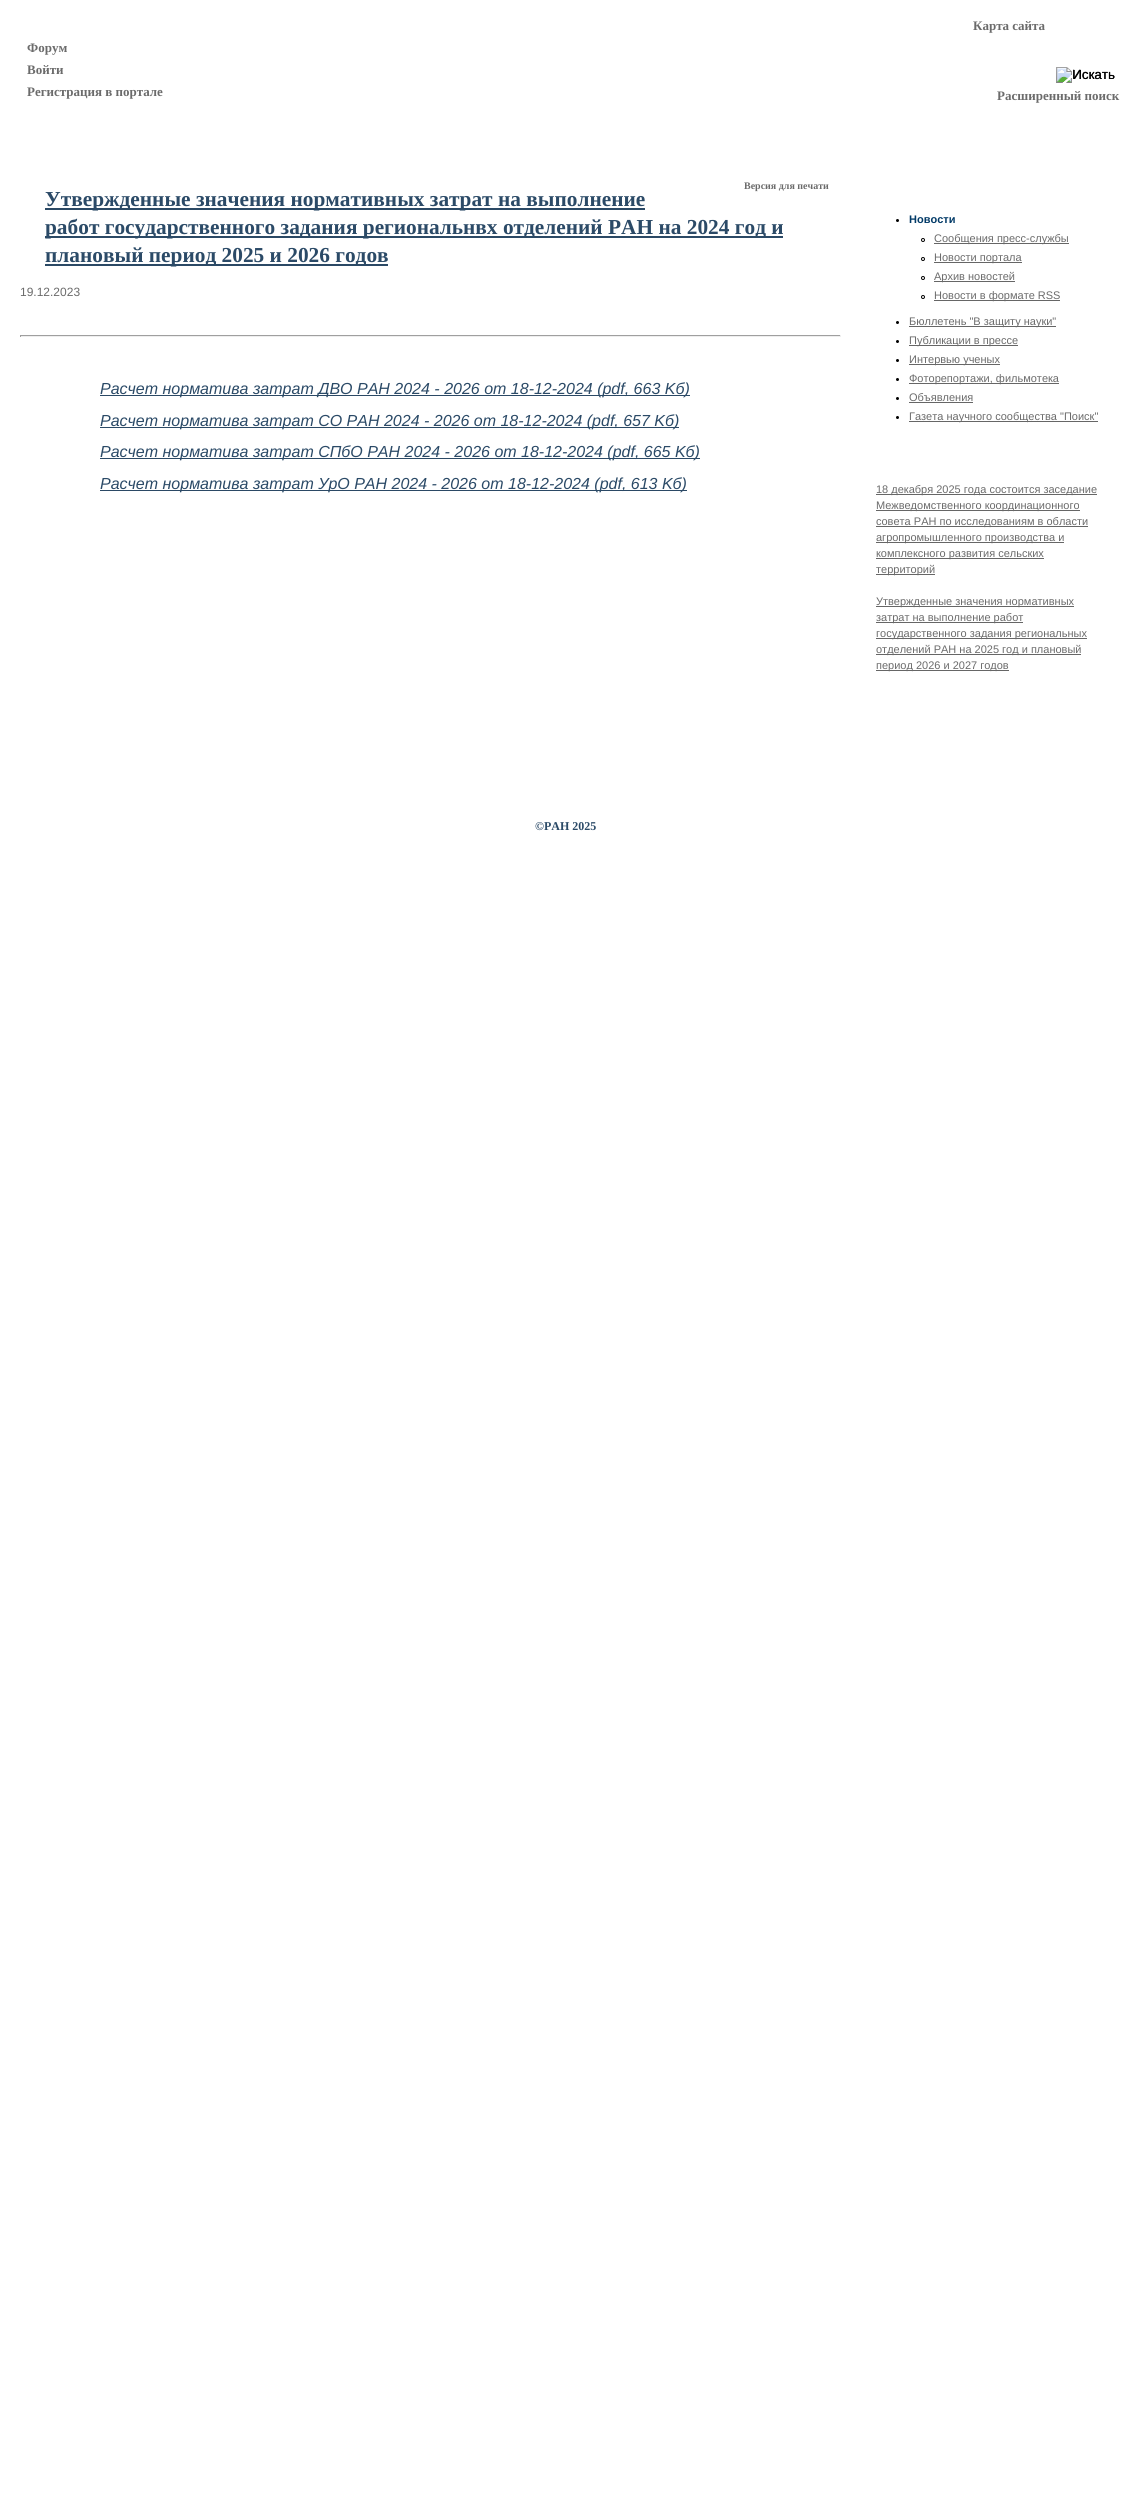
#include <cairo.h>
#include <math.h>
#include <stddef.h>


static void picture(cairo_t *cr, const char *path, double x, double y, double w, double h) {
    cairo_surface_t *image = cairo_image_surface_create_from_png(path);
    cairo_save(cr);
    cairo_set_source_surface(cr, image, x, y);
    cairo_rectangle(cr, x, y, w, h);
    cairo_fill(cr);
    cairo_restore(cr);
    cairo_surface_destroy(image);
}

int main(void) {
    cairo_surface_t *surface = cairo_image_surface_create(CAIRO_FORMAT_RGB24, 1131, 2519);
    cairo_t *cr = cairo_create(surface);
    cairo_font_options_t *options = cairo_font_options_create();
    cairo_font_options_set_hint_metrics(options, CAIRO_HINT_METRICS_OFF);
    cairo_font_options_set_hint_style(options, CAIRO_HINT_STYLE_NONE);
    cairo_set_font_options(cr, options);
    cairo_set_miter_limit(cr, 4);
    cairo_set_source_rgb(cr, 1, 1, 1);
    cairo_paint(cr);
    cairo_select_font_face(cr, "Liberation Serif", CAIRO_FONT_SLANT_NORMAL, CAIRO_FONT_WEIGHT_BOLD);
    cairo_set_font_size(cr, 13);
    cairo_set_source_rgb(cr, 0.42, 0.42, 0.42);
    cairo_move_to(cr, 27, 52);
    cairo_show_text(cr, "Форум");
    cairo_move_to(cr, 27, 74);
    cairo_show_text(cr, "Войти");
    cairo_move_to(cr, 27, 96);
    cairo_show_text(cr, "Регистрация в портале");
    cairo_move_to(cr, 973, 30);
    cairo_show_text(cr, "Карта сайта");
    picture(cr, "img1.png", 1056, 67, 59, 16);
    cairo_select_font_face(cr, "Liberation Sans", CAIRO_FONT_SLANT_NORMAL, CAIRO_FONT_WEIGHT_NORMAL);
    cairo_set_font_size(cr, 13.5);
    cairo_set_source_rgb(cr, 0, 0, 0);
    cairo_move_to(cr, 1072, 79);
    cairo_show_text(cr, "Искать");
    cairo_select_font_face(cr, "Liberation Serif", CAIRO_FONT_SLANT_NORMAL, CAIRO_FONT_WEIGHT_BOLD);
    cairo_set_font_size(cr, 13);
    cairo_set_source_rgb(cr, 0.42, 0.42, 0.42);
    cairo_move_to(cr, 997, 100);
    cairo_show_text(cr, "Расширенный поиск");
    cairo_set_font_size(cr, 10);
    cairo_move_to(cr, 744, 189);
    cairo_show_text(cr, "Версия для печати");
    cairo_set_source_rgb(cr, 0.169, 0.286, 0.396);
    cairo_rectangle(cr, 45, 208, 600, 2);
    cairo_fill(cr);
    cairo_set_font_size(cr, 21.35);
    cairo_set_source_rgb(cr, 0.169, 0.29, 0.404);
    cairo_move_to(cr, 45, 206);
    cairo_show_text(cr, "Утвержденные значения нормативных затрат на выполнение");
    cairo_set_source_rgb(cr, 0.169, 0.286, 0.396);
    cairo_rectangle(cr, 45, 236, 738, 2);
    cairo_fill(cr);
    cairo_set_source_rgb(cr, 0.169, 0.29, 0.404);
    cairo_move_to(cr, 45, 234);
    cairo_show_text(cr, "работ государственного задания региональнвх отделений РАН на 2024 год и");
    cairo_set_source_rgb(cr, 0.169, 0.286, 0.396);
    cairo_rectangle(cr, 45, 264, 343, 2);
    cairo_fill(cr);
    cairo_set_source_rgb(cr, 0.169, 0.29, 0.404);
    cairo_move_to(cr, 45, 262);
    cairo_show_text(cr, "плановый период 2025 и 2026 годов");
    cairo_select_font_face(cr, "Liberation Sans", CAIRO_FONT_SLANT_NORMAL, CAIRO_FONT_WEIGHT_NORMAL);
    cairo_set_font_size(cr, 12);
    cairo_set_source_rgb(cr, 0.42, 0.42, 0.42);
    cairo_move_to(cr, 20, 296);
    cairo_show_text(cr, "19.12.2023");
    cairo_set_source_rgb(cr, 0.624, 0.624, 0.624);
    cairo_rectangle(cr, 20, 335, 821, 1);
    cairo_fill(cr);
    cairo_set_source_rgb(cr, 0.933, 0.933, 0.933);
    cairo_rectangle(cr, 840, 335, 1, 2);
    cairo_fill(cr);
    cairo_rectangle(cr, 20, 336, 821, 1);
    cairo_fill(cr);
    cairo_set_source_rgb(cr, 0.624, 0.624, 0.624);
    cairo_rectangle(cr, 20, 335, 1, 2);
    cairo_fill(cr);
    cairo_set_source_rgb(cr, 0.169, 0.286, 0.396);
    cairo_rectangle(cr, 100, 395, 590, 1);
    cairo_fill(cr);
    cairo_select_font_face(cr, "Liberation Sans", CAIRO_FONT_SLANT_ITALIC, CAIRO_FONT_WEIGHT_NORMAL);
    cairo_set_font_size(cr, 16);
    cairo_set_source_rgb(cr, 0.169, 0.29, 0.404);
    cairo_move_to(cr, 100, 394);
    cairo_show_text(cr, "Расчет норматива затрат ДВО РАН 2024 - 2026 от 18-12-2024 (pdf, 663 Kб)");
    cairo_set_source_rgb(cr, 0.169, 0.286, 0.396);
    cairo_rectangle(cr, 100, 427, 579, 1);
    cairo_fill(cr);
    cairo_set_source_rgb(cr, 0.169, 0.29, 0.404);
    cairo_move_to(cr, 100, 426);
    cairo_show_text(cr, "Расчет норматива затрат СО РАН 2024 - 2026 от 18-12-2024 (pdf, 657 Kб)");
    cairo_set_source_rgb(cr, 0.169, 0.286, 0.396);
    cairo_rectangle(cr, 100, 458, 600, 1);
    cairo_fill(cr);
    cairo_set_source_rgb(cr, 0.169, 0.29, 0.404);
    cairo_move_to(cr, 100, 457);
    cairo_show_text(cr, "Расчет норматива затрат СПбО РАН 2024 - 2026 от 18-12-2024 (pdf, 665 Kб)");
    cairo_set_source_rgb(cr, 0.169, 0.286, 0.396);
    cairo_rectangle(cr, 100, 490, 587, 1);
    cairo_fill(cr);
    cairo_set_source_rgb(cr, 0.169, 0.29, 0.404);
    cairo_move_to(cr, 100, 489);
    cairo_show_text(cr, "Расчет норматива затрат УрО РАН 2024 - 2026 от 18-12-2024 (pdf, 613 Kб)");
    cairo_set_source_rgb(cr, 0, 0, 0);
    cairo_new_path(cr);
    cairo_arc(cr, 897.5, 220.5, 1.5, 0, 2 * M_PI);
    cairo_fill(cr);
    cairo_select_font_face(cr, "Liberation Sans", CAIRO_FONT_SLANT_NORMAL, CAIRO_FONT_WEIGHT_BOLD);
    cairo_set_font_size(cr, 11);
    cairo_set_source_rgb(cr, 0.008, 0.227, 0.404);
    cairo_move_to(cr, 909, 223);
    cairo_show_text(cr, "Новости");
    cairo_new_path(cr);
    cairo_arc(cr, 923, 240, 1.5, 0, 2 * M_PI);
    cairo_set_source_rgb(cr, 0, 0, 0);
    cairo_set_line_width(cr, 1);
    cairo_stroke(cr);
    cairo_set_source_rgb(cr, 0.4, 0.4, 0.4);
    cairo_rectangle(cr, 934, 243, 135, 1);
    cairo_fill(cr);
    cairo_select_font_face(cr, "Liberation Sans", CAIRO_FONT_SLANT_NORMAL, CAIRO_FONT_WEIGHT_NORMAL);
    cairo_set_source_rgb(cr, 0.42, 0.42, 0.42);
    cairo_move_to(cr, 934, 242);
    cairo_show_text(cr, "Сообщения пресс-службы");
    cairo_new_path(cr);
    cairo_arc(cr, 923, 259, 1.5, 0, 2 * M_PI);
    cairo_set_source_rgb(cr, 0, 0, 0);
    cairo_stroke(cr);
    cairo_set_source_rgb(cr, 0.4, 0.4, 0.4);
    cairo_rectangle(cr, 934, 262, 88, 1);
    cairo_fill(cr);
    cairo_set_source_rgb(cr, 0.42, 0.42, 0.42);
    cairo_move_to(cr, 934, 261);
    cairo_show_text(cr, "Новости портала");
    cairo_new_path(cr);
    cairo_arc(cr, 923, 278, 1.5, 0, 2 * M_PI);
    cairo_set_source_rgb(cr, 0, 0, 0);
    cairo_stroke(cr);
    cairo_set_source_rgb(cr, 0.4, 0.4, 0.4);
    cairo_rectangle(cr, 934, 281, 81, 1);
    cairo_fill(cr);
    cairo_set_source_rgb(cr, 0.42, 0.42, 0.42);
    cairo_move_to(cr, 934, 280);
    cairo_show_text(cr, "Архив новостей");
    cairo_new_path(cr);
    cairo_arc(cr, 923, 297, 1.5, 0, 2 * M_PI);
    cairo_set_source_rgb(cr, 0, 0, 0);
    cairo_stroke(cr);
    cairo_set_source_rgb(cr, 0.4, 0.4, 0.4);
    cairo_rectangle(cr, 934, 300, 126, 1);
    cairo_fill(cr);
    cairo_set_source_rgb(cr, 0.42, 0.42, 0.42);
    cairo_move_to(cr, 934, 299);
    cairo_show_text(cr, "Новости в формате RSS");
    cairo_set_source_rgb(cr, 0, 0, 0);
    cairo_new_path(cr);
    cairo_arc(cr, 897.5, 322.5, 1.5, 0, 2 * M_PI);
    cairo_fill(cr);
    cairo_set_source_rgb(cr, 0.4, 0.4, 0.4);
    cairo_rectangle(cr, 909, 326, 147, 1);
    cairo_fill(cr);
    cairo_set_source_rgb(cr, 0.42, 0.42, 0.42);
    cairo_move_to(cr, 909, 325);
    cairo_show_text(cr, "Бюллетень \"В защиту науки\"");
    cairo_set_source_rgb(cr, 0, 0, 0);
    cairo_new_path(cr);
    cairo_arc(cr, 897.5, 341.5, 1.5, 0, 2 * M_PI);
    cairo_fill(cr);
    cairo_set_source_rgb(cr, 0.4, 0.4, 0.4);
    cairo_rectangle(cr, 909, 345, 109, 1);
    cairo_fill(cr);
    cairo_set_source_rgb(cr, 0.42, 0.42, 0.42);
    cairo_move_to(cr, 909, 344);
    cairo_show_text(cr, "Публикации в прессе");
    cairo_set_source_rgb(cr, 0, 0, 0);
    cairo_new_path(cr);
    cairo_arc(cr, 897.5, 360.5, 1.5, 0, 2 * M_PI);
    cairo_fill(cr);
    cairo_set_source_rgb(cr, 0.4, 0.4, 0.4);
    cairo_rectangle(cr, 909, 364, 91, 1);
    cairo_fill(cr);
    cairo_set_source_rgb(cr, 0.42, 0.42, 0.42);
    cairo_move_to(cr, 909, 363);
    cairo_show_text(cr, "Интервью ученых");
    cairo_set_source_rgb(cr, 0, 0, 0);
    cairo_new_path(cr);
    cairo_arc(cr, 897.5, 379.5, 1.5, 0, 2 * M_PI);
    cairo_fill(cr);
    cairo_set_source_rgb(cr, 0.4, 0.4, 0.4);
    cairo_rectangle(cr, 909, 383, 150, 1);
    cairo_fill(cr);
    cairo_set_source_rgb(cr, 0.42, 0.42, 0.42);
    cairo_move_to(cr, 909, 382);
    cairo_show_text(cr, "Фоторепортажи, фильмотека");
    cairo_set_source_rgb(cr, 0, 0, 0);
    cairo_new_path(cr);
    cairo_arc(cr, 897.5, 398.5, 1.5, 0, 2 * M_PI);
    cairo_fill(cr);
    cairo_set_source_rgb(cr, 0.42, 0.42, 0.42);
    cairo_move_to(cr, 909, 401);
    cairo_show_text(cr, "Объявления");
    cairo_set_source_rgb(cr, 0.4, 0.4, 0.4);
    cairo_rectangle(cr, 909, 402, 64, 1);
    cairo_fill(cr);
    cairo_set_source_rgb(cr, 0, 0, 0);
    cairo_arc(cr, 897.5, 417.5, 1.5, 0, 2 * M_PI);
    cairo_fill(cr);
    cairo_set_source_rgb(cr, 0.4, 0.4, 0.4);
    cairo_rectangle(cr, 909, 421, 189, 1);
    cairo_fill(cr);
    cairo_set_source_rgb(cr, 0.42, 0.42, 0.42);
    cairo_move_to(cr, 909, 420);
    cairo_show_text(cr, "Газета научного сообщества \"Поиск\"");
    cairo_set_source_rgb(cr, 0.4, 0.4, 0.4);
    cairo_rectangle(cr, 876, 494, 221, 1);
    cairo_fill(cr);
    cairo_set_source_rgb(cr, 0.42, 0.42, 0.42);
    cairo_move_to(cr, 876, 493);
    cairo_show_text(cr, "18 декабря 2025 года состоится заседание");
    cairo_set_source_rgb(cr, 0.4, 0.4, 0.4);
    cairo_rectangle(cr, 876, 510, 204, 1);
    cairo_fill(cr);
    cairo_set_source_rgb(cr, 0.42, 0.42, 0.42);
    cairo_move_to(cr, 876, 509);
    cairo_show_text(cr, "Межведомственного координационного");
    cairo_set_source_rgb(cr, 0.4, 0.4, 0.4);
    cairo_rectangle(cr, 876, 526, 212, 1);
    cairo_fill(cr);
    cairo_set_source_rgb(cr, 0.42, 0.42, 0.42);
    cairo_move_to(cr, 876, 525);
    cairo_show_text(cr, "совета РАН по исследованиям в области");
    cairo_set_source_rgb(cr, 0.4, 0.4, 0.4);
    cairo_rectangle(cr, 876, 542, 188, 1);
    cairo_fill(cr);
    cairo_set_source_rgb(cr, 0.42, 0.42, 0.42);
    cairo_move_to(cr, 876, 541);
    cairo_show_text(cr, "агропромышленного производства и");
    cairo_set_source_rgb(cr, 0.4, 0.4, 0.4);
    cairo_rectangle(cr, 876, 558, 168, 1);
    cairo_fill(cr);
    cairo_set_source_rgb(cr, 0.42, 0.42, 0.42);
    cairo_move_to(cr, 876, 557);
    cairo_show_text(cr, "комплексного развития сельских");
    cairo_set_source_rgb(cr, 0.4, 0.4, 0.4);
    cairo_rectangle(cr, 876, 574, 59, 1);
    cairo_fill(cr);
    cairo_set_source_rgb(cr, 0.42, 0.42, 0.42);
    cairo_move_to(cr, 876, 573);
    cairo_show_text(cr, "территорий");
    cairo_set_source_rgb(cr, 0.4, 0.4, 0.4);
    cairo_rectangle(cr, 876, 606, 198, 1);
    cairo_fill(cr);
    cairo_set_source_rgb(cr, 0.42, 0.42, 0.42);
    cairo_move_to(cr, 876, 605);
    cairo_show_text(cr, "Утвержденные значения нормативных");
    cairo_set_source_rgb(cr, 0.4, 0.4, 0.4);
    cairo_rectangle(cr, 876, 622, 147, 1);
    cairo_fill(cr);
    cairo_set_source_rgb(cr, 0.42, 0.42, 0.42);
    cairo_move_to(cr, 876, 621);
    cairo_show_text(cr, "затрат на выполнение работ");
    cairo_set_source_rgb(cr, 0.4, 0.4, 0.4);
    cairo_rectangle(cr, 876, 638, 211, 1);
    cairo_fill(cr);
    cairo_set_source_rgb(cr, 0.42, 0.42, 0.42);
    cairo_move_to(cr, 876, 637);
    cairo_show_text(cr, "государственного задания региональных");
    cairo_set_source_rgb(cr, 0.4, 0.4, 0.4);
    cairo_rectangle(cr, 876, 654, 205, 1);
    cairo_fill(cr);
    cairo_set_source_rgb(cr, 0.42, 0.42, 0.42);
    cairo_move_to(cr, 876, 653);
    cairo_show_text(cr, "отделений РАН на 2025 год и плановый");
    cairo_set_source_rgb(cr, 0.4, 0.4, 0.4);
    cairo_rectangle(cr, 876, 670, 133, 1);
    cairo_fill(cr);
    cairo_set_source_rgb(cr, 0.42, 0.42, 0.42);
    cairo_move_to(cr, 876, 669);
    cairo_show_text(cr, "период 2026 и 2027 годов");
    cairo_select_font_face(cr, "Liberation Serif", CAIRO_FONT_SLANT_NORMAL, CAIRO_FONT_WEIGHT_BOLD);
    cairo_set_font_size(cr, 12);
    cairo_set_source_rgb(cr, 0.169, 0.29, 0.404);
    cairo_move_to(cr, 535, 830);
    cairo_show_text(cr, "©РАН 2025");
    cairo_surface_write_to_png(surface, "page.png");
    cairo_font_options_destroy(options);
    cairo_destroy(cr);
    cairo_surface_destroy(surface);
    return 0;
}
